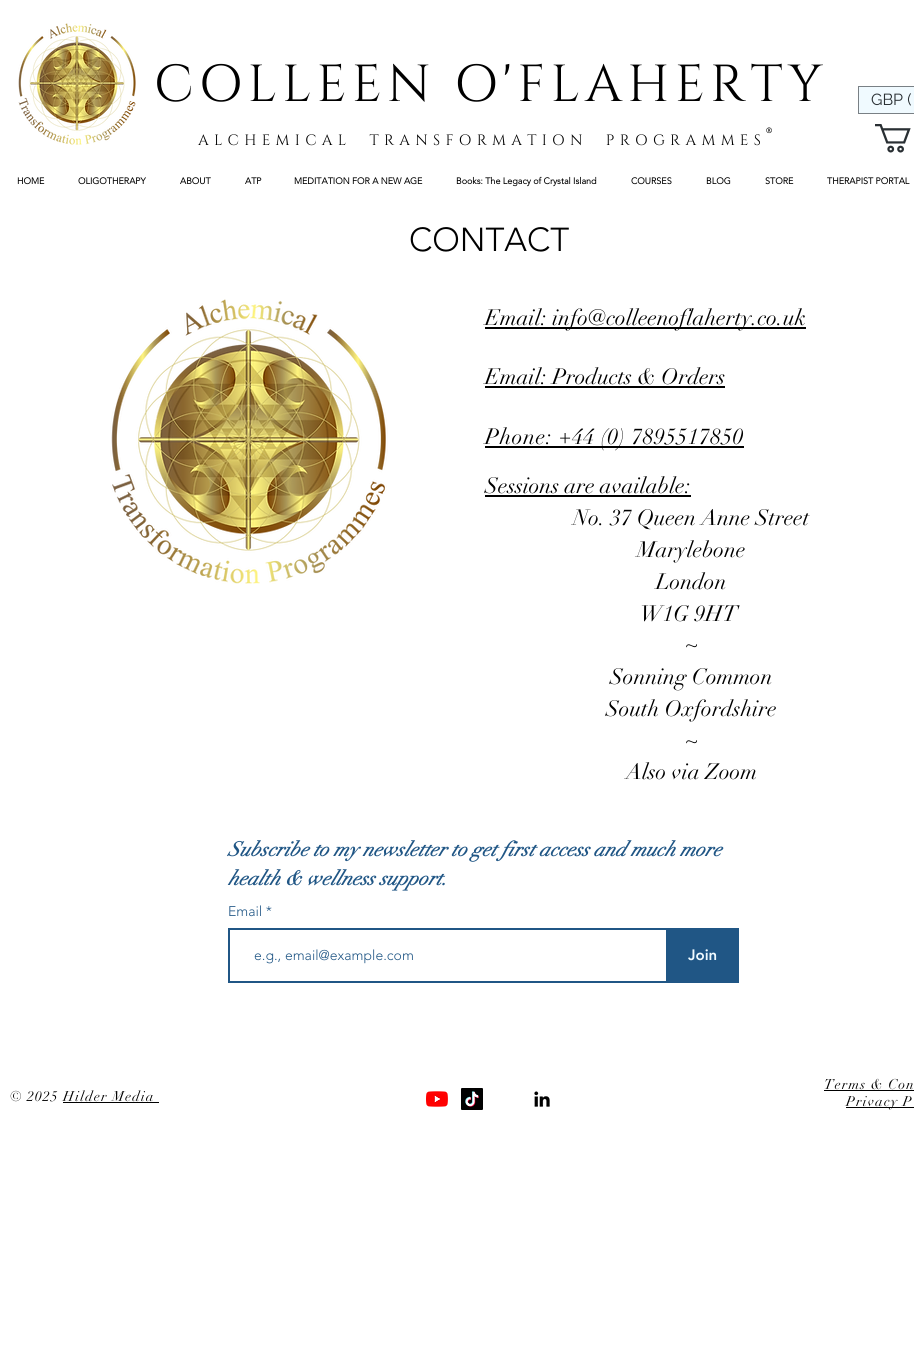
#include <cairo.h>
#include <math.h>
#include <stddef.h>


static void spaced_text(cairo_t *cr, double x, double y, const char *s, double letter, double word) {
    cairo_move_to(cr, x, y);
    while (*s) {
        char ch[5] = {0};
        int n = 0;
        do ch[n++] = *s++; while ((*s & 0xC0) == 0x80);
        cairo_show_text(cr, ch);
        cairo_rel_move_to(cr, letter + word * (*ch == ' '), 0);
    }
}

static void picture(cairo_t *cr, const char *path, double x, double y, double w, double h) {
    cairo_surface_t *image = cairo_image_surface_create_from_png(path);
    cairo_save(cr);
    cairo_set_source_surface(cr, image, x, y);
    cairo_rectangle(cr, x, y, w, h);
    cairo_fill(cr);
    cairo_restore(cr);
    cairo_surface_destroy(image);
}

int main(void) {
    cairo_surface_t *surface = cairo_image_surface_create(CAIRO_FORMAT_RGB24, 914, 1363);
    cairo_t *cr = cairo_create(surface);
    cairo_font_options_t *options = cairo_font_options_create();
    cairo_font_options_set_hint_metrics(options, CAIRO_HINT_METRICS_OFF);
    cairo_font_options_set_hint_style(options, CAIRO_HINT_STYLE_NONE);
    cairo_set_font_options(cr, options);
    cairo_set_miter_limit(cr, 4);
    cairo_set_source_rgb(cr, 1, 1, 1);
    cairo_paint(cr);
    picture(cr, "img1.png", 18, 23, 118, 122);
    cairo_select_font_face(cr, "Cinzel", CAIRO_FONT_SLANT_NORMAL, CAIRO_FONT_WEIGHT_NORMAL);
    cairo_set_font_size(cr, 52);
    cairo_set_source_rgb(cr, 0, 0, 0);
    spaced_text(cr, 154, 101, "COLLEEN O'FLAHERTY", 5.25, 0);
    cairo_set_source_rgb(cr, 0.941, 0.98, 1);
    cairo_rectangle(cr, 858.5, 86.5, 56, 27);
    cairo_fill_preserve(cr);
    cairo_set_source_rgb(cr, 0.475, 0.502, 0.522);
    cairo_set_line_width(cr, 1);
    cairo_stroke(cr);
    cairo_select_font_face(cr, "Raleway", CAIRO_FONT_SLANT_NORMAL, CAIRO_FONT_WEIGHT_NORMAL);
    cairo_set_font_size(cr, 16);
    cairo_set_source_rgb(cr, 0.161, 0.184, 0.2);
    cairo_move_to(cr, 871, 105);
    cairo_show_text(cr, "GBP (");
    cairo_select_font_face(cr, "Cinzel", CAIRO_FONT_SLANT_NORMAL, CAIRO_FONT_WEIGHT_NORMAL);
    cairo_set_font_size(cr, 25);
    cairo_set_source_rgb(cr, 0, 0, 0);
    spaced_text(cr, 766, 145, "®", 9, 0);
    cairo_set_font_size(cr, 15);
    spaced_text(cr, 198, 145, "ALCHEMICAL  TRANSFORMATION  PROGRAMMES", 5.25, 0);
    picture(cr, "img2.png", 875, 124, 36, 29);
    cairo_select_font_face(cr, "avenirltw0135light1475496", CAIRO_FONT_SLANT_NORMAL, CAIRO_FONT_WEIGHT_BOLD);
    cairo_set_font_size(cr, 9);
    cairo_move_to(cr, 17, 184);
    cairo_show_text(cr, "HOME");
    cairo_move_to(cr, 78, 184);
    cairo_show_text(cr, "OLIGOTHERAPY");
    cairo_move_to(cr, 180, 184);
    cairo_show_text(cr, "ABOUT");
    cairo_move_to(cr, 245, 184);
    cairo_show_text(cr, "ATP");
    cairo_move_to(cr, 294, 184);
    cairo_show_text(cr, "MEDITATION FOR A NEW AGE");
    cairo_move_to(cr, 456, 184);
    cairo_show_text(cr, "Books: The Legacy of Crystal Island");
    cairo_move_to(cr, 631, 184);
    cairo_show_text(cr, "COURSES");
    cairo_move_to(cr, 706, 184);
    cairo_show_text(cr, "BLOG");
    cairo_move_to(cr, 765, 184);
    cairo_show_text(cr, "STORE");
    cairo_move_to(cr, 827, 184);
    cairo_show_text(cr, "THERAPIST PORTAL");
    cairo_select_font_face(cr, "avenirltw0135light1475496 Light", CAIRO_FONT_SLANT_NORMAL, CAIRO_FONT_WEIGHT_NORMAL);
    cairo_set_font_size(cr, 33);
    cairo_move_to(cr, 409, 251);
    cairo_show_text(cr, "CONTACT");
    picture(cr, "img3.png", 110, 299, 278, 285);
    cairo_rectangle(cr, 485, 327, 321, 2);
    cairo_fill(cr);
    cairo_select_font_face(cr, "didot", CAIRO_FONT_SLANT_NORMAL, CAIRO_FONT_WEIGHT_NORMAL);
    cairo_set_font_size(cr, 22);
    cairo_move_to(cr, 485, 325);
    cairo_show_text(cr, "Email: info@colleenoflaherty.co.uk");
    cairo_move_to(cr, 485, 384);
    cairo_show_text(cr, "Email: Products & Orders");
    cairo_rectangle(cr, 485, 386, 240, 2);
    cairo_fill(cr);
    cairo_rectangle(cr, 485, 446, 259, 2);
    cairo_fill(cr);
    spaced_text(cr, 485, 444, "Phone: +44 (0) 7895517850", 0.65, 0);
    cairo_move_to(cr, 485, 493);
    cairo_show_text(cr, "Sessions are available:");
    cairo_rectangle(cr, 485, 495, 206, 2);
    cairo_fill(cr);
    cairo_move_to(cr, 573, 525);
    cairo_show_text(cr, "No. 37 Queen Anne Street");
    cairo_move_to(cr, 637, 557);
    cairo_show_text(cr, "Marylebone");
    cairo_move_to(cr, 656, 589);
    cairo_show_text(cr, "London");
    cairo_move_to(cr, 640, 621);
    cairo_show_text(cr, "W1G 9HT");
    cairo_move_to(cr, 685, 652);
    cairo_show_text(cr, "~");
    cairo_move_to(cr, 610, 684);
    cairo_show_text(cr, "Sonning Common");
    cairo_move_to(cr, 606, 716);
    cairo_show_text(cr, "South Oxfordshire");
    cairo_move_to(cr, 685, 748);
    cairo_show_text(cr, "~");
    cairo_move_to(cr, 626, 779);
    cairo_show_text(cr, "Also via Zoom");
    cairo_select_font_face(cr, "didot", CAIRO_FONT_SLANT_ITALIC, CAIRO_FONT_WEIGHT_BOLD);
    cairo_set_font_size(cr, 20);
    cairo_set_source_rgb(cr, 0.125, 0.337, 0.522);
    cairo_move_to(cr, 228, 856);
    cairo_show_text(cr, "Subscribe to my newsletter to get first access and much more");
    cairo_move_to(cr, 228, 885);
    cairo_show_text(cr, "health & wellness support.");
    cairo_select_font_face(cr, "avenirltw0135light1475496 Light", CAIRO_FONT_SLANT_NORMAL, CAIRO_FONT_WEIGHT_NORMAL);
    cairo_set_font_size(cr, 14);
    cairo_move_to(cr, 228, 916);
    cairo_show_text(cr, "Email *");
    cairo_rectangle(cr, 229, 929, 442, 53);
    cairo_set_line_width(cr, 2);
    cairo_stroke(cr);
    cairo_move_to(cr, 254, 960);
    cairo_show_text(cr, "e.g., email@example.com");
    cairo_rectangle(cr, 666, 928, 73, 55);
    cairo_fill(cr);
    cairo_select_font_face(cr, "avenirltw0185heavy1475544 Black", CAIRO_FONT_SLANT_NORMAL, CAIRO_FONT_WEIGHT_NORMAL);
    cairo_set_font_size(cr, 15);
    cairo_set_source_rgb(cr, 0.941, 0.98, 1);
    cairo_move_to(cr, 688, 960);
    cairo_show_text(cr, "Join");
    cairo_select_font_face(cr, "didot", CAIRO_FONT_SLANT_NORMAL, CAIRO_FONT_WEIGHT_NORMAL);
    cairo_set_font_size(cr, 14);
    cairo_set_source_rgb(cr, 0, 0, 0);
    spaced_text(cr, 10, 1101, "© 2025 Hilder Media", 1.1, 0);
    cairo_rectangle(cr, 63, 1102, 96, 1);
    cairo_fill(cr);
    picture(cr, "img4.png", 426, 1091, 22, 16);
    picture(cr, "img5.png", 461, 1088, 22, 22);
    picture(cr, "img6.png", 534, 1091, 16, 16);
    spaced_text(cr, 824, 1089, "Terms & Con", 1.1, 0);
    cairo_rectangle(cr, 824, 1090, 90, 1);
    cairo_fill(cr);
    cairo_rectangle(cr, 846, 1107, 68, 1);
    cairo_fill(cr);
    spaced_text(cr, 846, 1106, "Privacy P", 1.1, 0);
    cairo_surface_write_to_png(surface, "page.png");
    cairo_font_options_destroy(options);
    cairo_destroy(cr);
    cairo_surface_destroy(surface);
    return 0;
}
